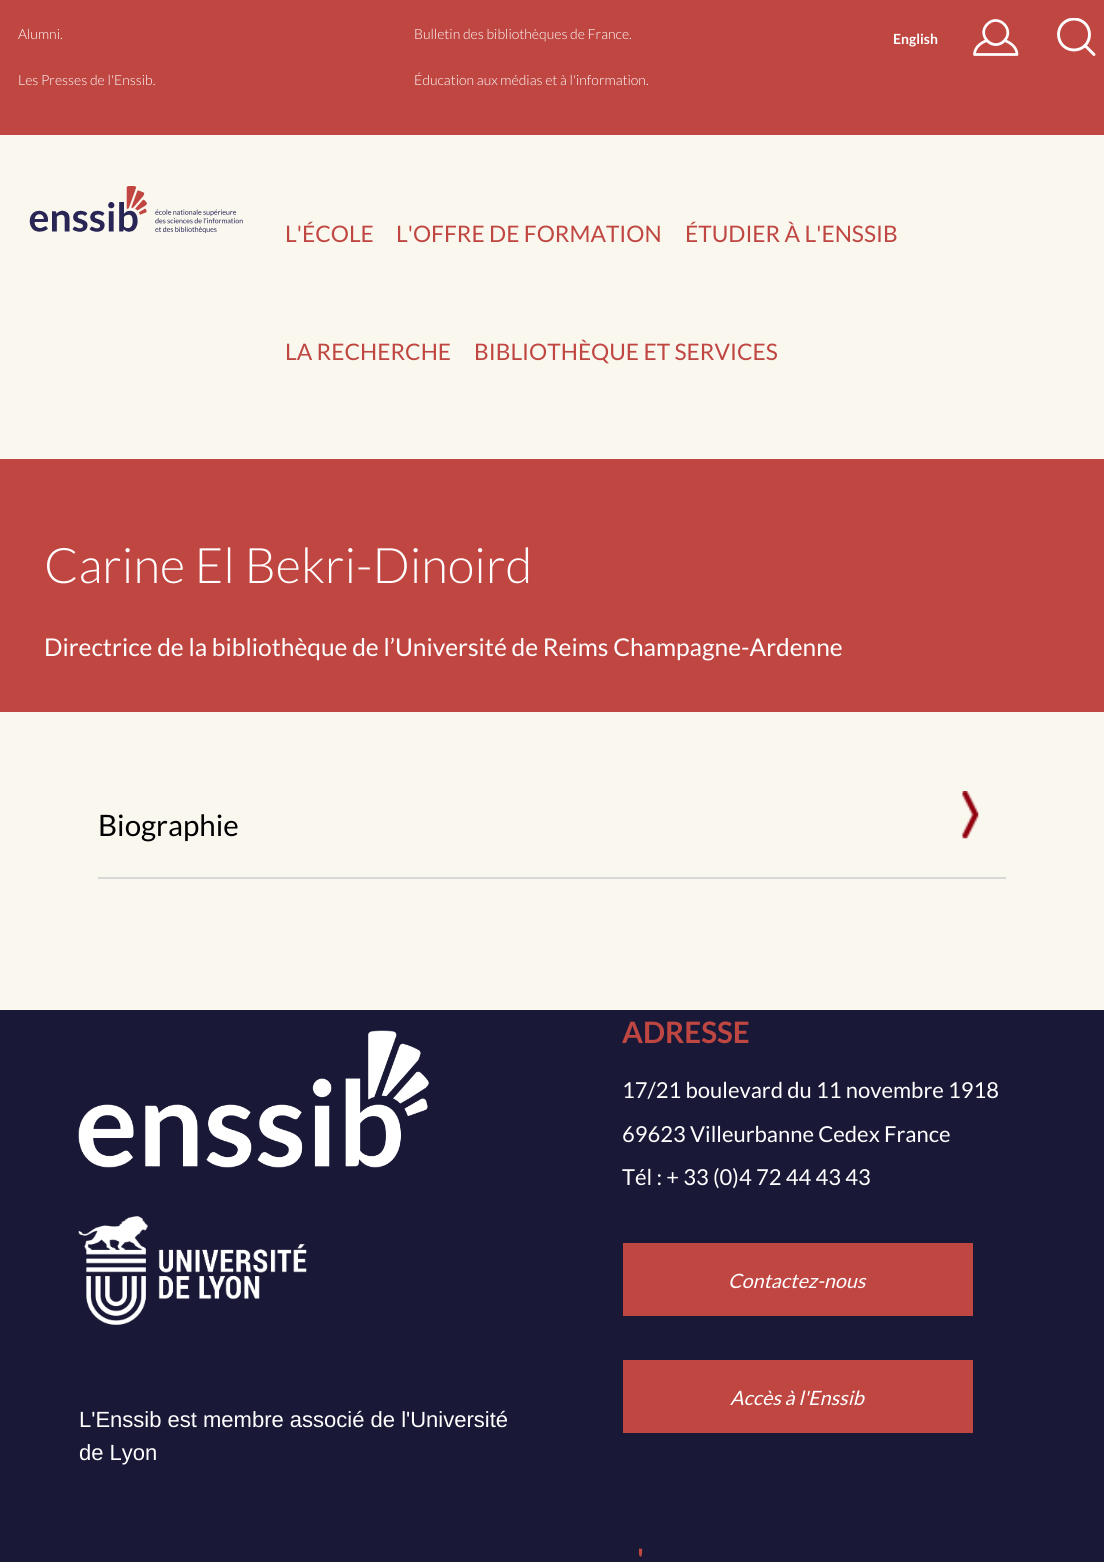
#include <cairo.h>
#include <math.h>
#include <stddef.h>


static void picture(cairo_t *cr, const char *path, double x, double y, double w, double h) {
    cairo_surface_t *image = cairo_image_surface_create_from_png(path);
    cairo_save(cr);
    cairo_set_source_surface(cr, image, x, y);
    cairo_rectangle(cr, x, y, w, h);
    cairo_fill(cr);
    cairo_restore(cr);
    cairo_surface_destroy(image);
}

int main(void) {
    cairo_surface_t *surface = cairo_image_surface_create(CAIRO_FORMAT_RGB24, 1104, 1562);
    cairo_t *cr = cairo_create(surface);
    cairo_font_options_t *options = cairo_font_options_create();
    cairo_font_options_set_hint_metrics(options, CAIRO_HINT_METRICS_OFF);
    cairo_font_options_set_hint_style(options, CAIRO_HINT_STYLE_NONE);
    cairo_set_font_options(cr, options);
    cairo_set_miter_limit(cr, 4);
    cairo_set_source_rgb(cr, 0.98, 0.965, 0.937);
    cairo_paint(cr);
    cairo_set_source_rgb(cr, 0.753, 0.275, 0.255);
    cairo_rectangle(cr, 0, 0, 1104, 135);
    cairo_fill(cr);
    cairo_select_font_face(cr, "Lato Light", CAIRO_FONT_SLANT_NORMAL, CAIRO_FONT_WEIGHT_NORMAL);
    cairo_set_font_size(cr, 14);
    cairo_set_source_rgb(cr, 1, 1, 1);
    cairo_move_to(cr, 18, 39);
    cairo_show_text(cr, "Alumni.");
    cairo_move_to(cr, 414, 39);
    cairo_show_text(cr, "Bulletin des bibliothèques de France.");
    cairo_move_to(cr, 18, 85);
    cairo_show_text(cr, "Les Presses de l'Enssib.");
    cairo_move_to(cr, 414, 85);
    cairo_show_text(cr, "Éducation aux médias et à l'information.");
    cairo_select_font_face(cr, "Lato", CAIRO_FONT_SLANT_NORMAL, CAIRO_FONT_WEIGHT_BOLD);
    cairo_move_to(cr, 893, 44);
    cairo_show_text(cr, "English");
    cairo_new_path(cr);
    cairo_move_to(cr, 987.5, 24);
    cairo_curve_to(cr, 998.5, 13, 1015.5, 30, 1004, 41);
    cairo_curve_to(cr, 993, 52, 976, 35, 987.5, 24);
    cairo_close_path(cr);
    cairo_move_to(cr, 1004.5, 40.5);
    cairo_curve_to(cr, 1000, 46, 991.5, 46, 987, 40.5);
    cairo_curve_to(cr, 979.5, 43, 974.5, 48.5, 974.5, 54.5);
    cairo_line_to(cr, 1017, 54.5);
    cairo_curve_to(cr, 1017, 48.5, 1012, 43, 1004.5, 40.5);
    cairo_close_path(cr);
    cairo_set_line_width(cr, 2.7);
    cairo_set_line_cap(cr, CAIRO_LINE_CAP_ROUND);
    cairo_set_line_join(cr, CAIRO_LINE_JOIN_ROUND);
    cairo_stroke(cr);
    cairo_save(cr);
    cairo_rectangle(cr, 1057, 18, 39, 38);
    cairo_clip(cr);
    cairo_new_path(cr);
    cairo_move_to(cr, 1063, 23.5);
    cairo_curve_to(cr, 1069, 17.5, 1079, 17.5, 1085, 23.5);
    cairo_curve_to(cr, 1091, 29.5, 1091, 39.5, 1085, 45.5);
    cairo_curve_to(cr, 1079, 51.5, 1069, 51.5, 1063, 45.5);
    cairo_curve_to(cr, 1057, 39.5, 1057, 29.5, 1063, 23.5);
    cairo_close_path(cr);
    cairo_set_line_width(cr, 2.9);
    cairo_set_line_cap(cr, CAIRO_LINE_CAP_BUTT);
    cairo_set_line_join(cr, CAIRO_LINE_JOIN_MITER);
    cairo_stroke(cr);
    cairo_restore(cr);
    cairo_new_path(cr);
    cairo_move_to(cr, 1085, 45.5);
    cairo_line_to(cr, 1094, 54.5);
    cairo_set_line_width(cr, 2.9);
    cairo_stroke(cr);
    picture(cr, "img1.png", 29, 186, 214, 47);
    cairo_select_font_face(cr, "Lato", CAIRO_FONT_SLANT_NORMAL, CAIRO_FONT_WEIGHT_NORMAL);
    cairo_set_font_size(cr, 22.75);
    cairo_set_source_rgb(cr, 0.753, 0.275, 0.255);
    cairo_move_to(cr, 285, 242);
    cairo_show_text(cr, "L'ÉCOLE");
    cairo_move_to(cr, 396, 242);
    cairo_show_text(cr, "L'OFFRE DE FORMATION");
    cairo_move_to(cr, 685, 242);
    cairo_show_text(cr, "ÉTUDIER À L'ENSSIB");
    cairo_move_to(cr, 285, 360);
    cairo_show_text(cr, "LA RECHERCHE");
    cairo_move_to(cr, 474, 360);
    cairo_show_text(cr, "BIBLIOTHÈQUE ET SERVICES");
    cairo_rectangle(cr, 0, 459, 1104, 253);
    cairo_fill(cr);
    cairo_select_font_face(cr, "Lato Light", CAIRO_FONT_SLANT_NORMAL, CAIRO_FONT_WEIGHT_NORMAL);
    cairo_set_font_size(cr, 49);
    cairo_set_source_rgb(cr, 1, 1, 1);
    cairo_move_to(cr, 44, 583);
    cairo_show_text(cr, "Carine El Bekri-Dinoird");
    cairo_select_font_face(cr, "Lato", CAIRO_FONT_SLANT_NORMAL, CAIRO_FONT_WEIGHT_NORMAL);
    cairo_set_font_size(cr, 24.5);
    cairo_move_to(cr, 44, 656);
    cairo_show_text(cr, "Directrice de la bibliothèque de l’Université de Reims Champagne-Ardenne");
    cairo_set_source_rgb(cr, 0.847, 0.847, 0.847);
    cairo_rectangle(cr, 98, 877, 908, 2);
    cairo_fill(cr);
    cairo_set_font_size(cr, 29.5);
    cairo_set_source_rgb(cr, 0, 0, 0);
    cairo_move_to(cr, 98, 836);
    cairo_show_text(cr, "Biographie");
    picture(cr, "img2.png", 962, 791, 17, 48);
    cairo_set_source_rgb(cr, 0.098, 0.098, 0.216);
    cairo_rectangle(cr, 0, 1010, 1104, 552);
    cairo_fill(cr);
    cairo_select_font_face(cr, "Lato", CAIRO_FONT_SLANT_NORMAL, CAIRO_FONT_WEIGHT_BOLD);
    cairo_set_source_rgb(cr, 0.753, 0.275, 0.255);
    cairo_move_to(cr, 622, 1043);
    cairo_show_text(cr, "ADRESSE");
    cairo_select_font_face(cr, "Lato", CAIRO_FONT_SLANT_NORMAL, CAIRO_FONT_WEIGHT_NORMAL);
    cairo_set_font_size(cr, 22);
    cairo_set_source_rgb(cr, 1, 1, 1);
    cairo_move_to(cr, 622, 1098);
    cairo_show_text(cr, "17/21 boulevard du 11 novembre 1918");
    cairo_move_to(cr, 622, 1142);
    cairo_show_text(cr, "69623 Villeurbanne Cedex France");
    cairo_move_to(cr, 622, 1185);
    cairo_show_text(cr, "Tél : + 33 (0)4 72 44 43 43");
    cairo_set_source_rgb(cr, 0.753, 0.275, 0.255);
    cairo_rectangle(cr, 623, 1243, 350, 73);
    cairo_fill(cr);
    cairo_select_font_face(cr, "Lato", CAIRO_FONT_SLANT_ITALIC, CAIRO_FONT_WEIGHT_NORMAL);
    cairo_set_font_size(cr, 19.75);
    cairo_set_source_rgb(cr, 1, 1, 1);
    cairo_move_to(cr, 728, 1288);
    cairo_show_text(cr, "Contactez-nous");
    cairo_set_source_rgb(cr, 0.753, 0.275, 0.255);
    cairo_rectangle(cr, 623, 1360, 350, 73);
    cairo_fill(cr);
    cairo_set_source_rgb(cr, 1, 1, 1);
    cairo_move_to(cr, 730, 1405);
    cairo_show_text(cr, "Accès à l'Enssib");
    picture(cr, "img3.png", 78, 1030, 351, 138);
    picture(cr, "img4.png", 78, 1216, 229, 109);
    cairo_select_font_face(cr, "Liberation Sans", CAIRO_FONT_SLANT_NORMAL, CAIRO_FONT_WEIGHT_NORMAL);
    cairo_set_font_size(cr, 22);
    cairo_move_to(cr, 79, 1427);
    cairo_show_text(cr, "L'Enssib est membre associé de l'Université");
    cairo_move_to(cr, 79, 1460);
    cairo_show_text(cr, "de Lyon");
    cairo_select_font_face(cr, "Lato", CAIRO_FONT_SLANT_NORMAL, CAIRO_FONT_WEIGHT_BOLD);
    cairo_set_font_size(cr, 29.5);
    cairo_set_source_rgb(cr, 0.753, 0.275, 0.255);
    cairo_move_to(cr, 637, 1570);
    cairo_show_text(cr, "'");
    cairo_surface_write_to_png(surface, "page.png");
    cairo_font_options_destroy(options);
    cairo_destroy(cr);
    cairo_surface_destroy(surface);
    return 0;
}
